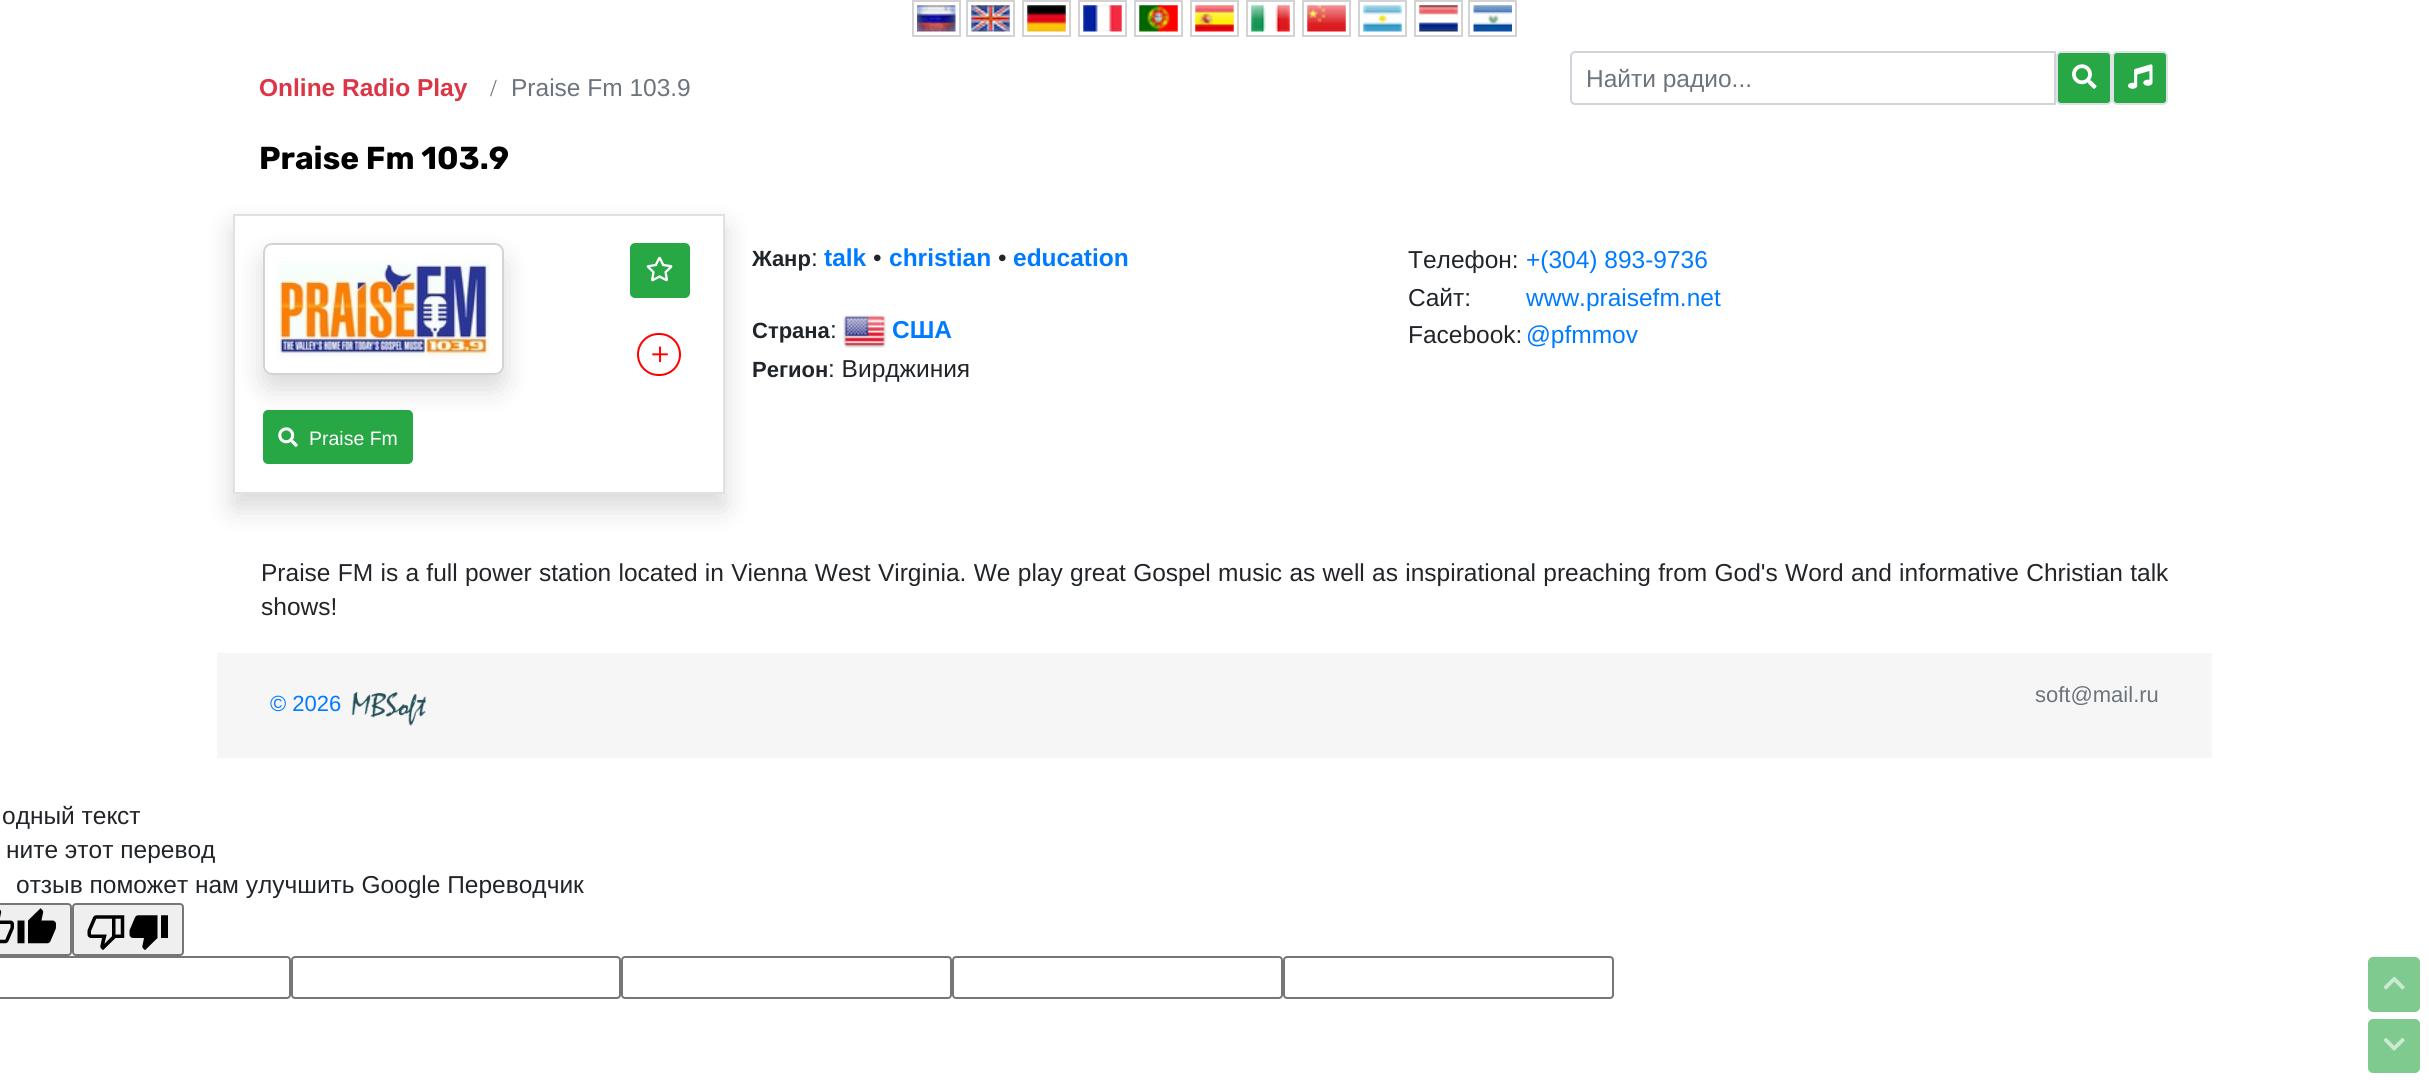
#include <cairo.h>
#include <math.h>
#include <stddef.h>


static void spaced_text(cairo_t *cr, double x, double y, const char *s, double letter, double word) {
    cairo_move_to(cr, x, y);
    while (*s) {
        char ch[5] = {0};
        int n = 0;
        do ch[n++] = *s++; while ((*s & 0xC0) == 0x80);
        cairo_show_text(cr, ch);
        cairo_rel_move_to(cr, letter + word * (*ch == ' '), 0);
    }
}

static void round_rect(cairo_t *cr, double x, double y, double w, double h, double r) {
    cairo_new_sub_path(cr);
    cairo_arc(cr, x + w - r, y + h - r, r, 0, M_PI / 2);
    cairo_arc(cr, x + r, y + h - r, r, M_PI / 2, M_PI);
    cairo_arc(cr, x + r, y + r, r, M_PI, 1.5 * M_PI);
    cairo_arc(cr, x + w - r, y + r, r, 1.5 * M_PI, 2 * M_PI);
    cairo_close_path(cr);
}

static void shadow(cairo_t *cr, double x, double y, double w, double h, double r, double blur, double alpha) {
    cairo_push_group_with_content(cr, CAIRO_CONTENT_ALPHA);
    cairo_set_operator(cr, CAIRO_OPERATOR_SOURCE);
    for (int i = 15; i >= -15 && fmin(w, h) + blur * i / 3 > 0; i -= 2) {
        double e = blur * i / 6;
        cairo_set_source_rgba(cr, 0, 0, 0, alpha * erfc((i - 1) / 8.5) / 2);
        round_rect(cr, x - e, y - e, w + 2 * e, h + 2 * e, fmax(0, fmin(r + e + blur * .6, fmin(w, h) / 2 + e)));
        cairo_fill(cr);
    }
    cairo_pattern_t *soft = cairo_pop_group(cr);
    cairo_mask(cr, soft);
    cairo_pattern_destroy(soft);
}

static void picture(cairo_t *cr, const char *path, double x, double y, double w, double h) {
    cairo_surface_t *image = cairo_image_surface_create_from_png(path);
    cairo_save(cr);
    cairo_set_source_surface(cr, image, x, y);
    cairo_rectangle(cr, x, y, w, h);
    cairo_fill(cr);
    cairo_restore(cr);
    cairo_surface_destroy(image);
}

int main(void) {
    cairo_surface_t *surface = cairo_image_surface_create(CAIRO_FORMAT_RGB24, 2429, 1080);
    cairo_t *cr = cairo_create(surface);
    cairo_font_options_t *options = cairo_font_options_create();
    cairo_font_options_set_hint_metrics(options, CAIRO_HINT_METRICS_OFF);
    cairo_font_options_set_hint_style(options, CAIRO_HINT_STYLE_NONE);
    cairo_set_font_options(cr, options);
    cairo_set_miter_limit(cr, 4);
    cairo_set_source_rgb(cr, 1, 1, 1);
    cairo_paint(cr);
    cairo_rectangle(cr, 913, 1, 47, 35);
    cairo_set_source_rgb(cr, 0.827, 0.827, 0.827);
    cairo_stroke(cr);
    cairo_rectangle(cr, 967, 1, 47, 35);
    cairo_stroke(cr);
    cairo_rectangle(cr, 1023, 1, 47, 35);
    cairo_stroke(cr);
    cairo_rectangle(cr, 1079, 1, 47, 35);
    cairo_stroke(cr);
    cairo_rectangle(cr, 1135, 1, 47, 35);
    cairo_stroke(cr);
    cairo_rectangle(cr, 1191, 1, 47, 35);
    cairo_stroke(cr);
    cairo_rectangle(cr, 1247, 1, 47, 35);
    cairo_stroke(cr);
    cairo_rectangle(cr, 1303, 1, 47, 35);
    cairo_stroke(cr);
    cairo_rectangle(cr, 1359, 1, 47, 35);
    cairo_stroke(cr);
    cairo_rectangle(cr, 1415, 1, 47, 35);
    cairo_stroke(cr);
    cairo_rectangle(cr, 1469, 1, 47, 35);
    cairo_stroke(cr);
    picture(cr, "img1.png", 917, 5, 39, 27);
    picture(cr, "img2.png", 971, 5, 39, 27);
    picture(cr, "img3.png", 1027, 5, 39, 27);
    picture(cr, "img4.png", 1083, 5, 39, 27);
    picture(cr, "img5.png", 1139, 5, 39, 27);
    picture(cr, "img6.png", 1195, 5, 39, 27);
    picture(cr, "img7.png", 1251, 5, 39, 27);
    picture(cr, "img8.png", 1307, 5, 39, 27);
    picture(cr, "img9.png", 1363, 5, 39, 27);
    picture(cr, "img10.png", 1419, 5, 39, 27);
    picture(cr, "img11.png", 1473, 5, 39, 27);
    cairo_select_font_face(cr, "Liberation Sans", CAIRO_FONT_SLANT_NORMAL, CAIRO_FONT_WEIGHT_BOLD);
    cairo_set_font_size(cr, 24.5);
    cairo_set_source_rgb(cr, 0.863, 0.208, 0.271);
    cairo_move_to(cr, 259, 96);
    cairo_show_text(cr, "Online Radio Play");
    cairo_select_font_face(cr, "Liberation Serif", CAIRO_FONT_SLANT_NORMAL, CAIRO_FONT_WEIGHT_NORMAL);
    cairo_set_source_rgb(cr, 0.424, 0.459, 0.49);
    cairo_move_to(cr, 490, 96);
    cairo_show_text(cr, "/");
    cairo_select_font_face(cr, "Liberation Sans", CAIRO_FONT_SLANT_NORMAL, CAIRO_FONT_WEIGHT_NORMAL);
    cairo_move_to(cr, 511, 96);
    cairo_show_text(cr, "Praise Fm 103.9");
    cairo_new_path(cr);
    cairo_move_to(cr, 1575, 52);
    cairo_line_to(cr, 2055, 52);
    cairo_line_to(cr, 2055, 104);
    cairo_line_to(cr, 1575, 104);
    cairo_curve_to(cr, 1573, 104, 1571, 102, 1571, 100);
    cairo_line_to(cr, 1571, 56);
    cairo_curve_to(cr, 1571, 54, 1573, 52, 1575, 52);
    cairo_close_path(cr);
    cairo_set_source_rgb(cr, 0.808, 0.831, 0.855);
    cairo_stroke(cr);
    cairo_set_source_rgb(cr, 0.424, 0.459, 0.49);
    cairo_move_to(cr, 1586, 87);
    cairo_show_text(cr, "Найти радио...");
    cairo_set_source_rgb(cr, 0.157, 0.655, 0.271);
    round_rect(cr, 2057, 52, 54, 52, 4);
    cairo_fill_preserve(cr);
    cairo_set_source_rgb(cr, 0.871, 0.886, 0.902);
    cairo_stroke(cr);
    picture(cr, "img12.png", 2072, 64, 25, 25);
    cairo_set_source_rgb(cr, 0.157, 0.655, 0.271);
    round_rect(cr, 2113, 52, 54, 52, 4);
    cairo_fill_preserve(cr);
    cairo_set_source_rgb(cr, 0.871, 0.886, 0.902);
    cairo_stroke(cr);
    picture(cr, "img13.png", 2128, 64, 25, 25);
    cairo_select_font_face(cr, "Rubik", CAIRO_FONT_SLANT_NORMAL, CAIRO_FONT_WEIGHT_BOLD);
    cairo_set_font_size(cr, 31.75);
    cairo_set_source_rgb(cr, 0, 0, 0);
    cairo_move_to(cr, 259, 169);
    cairo_show_text(cr, "Praise Fm 103.9");
    cairo_save(cr);
    cairo_set_fill_rule(cr, CAIRO_FILL_RULE_EVEN_ODD);
    cairo_new_path(cr);
    cairo_move_to(cr, 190, 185);
    cairo_line_to(cr, 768, 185);
    cairo_line_to(cr, 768, 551);
    cairo_line_to(cr, 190, 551);
    cairo_close_path(cr);
    cairo_move_to(cr, 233, 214);
    cairo_line_to(cr, 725, 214);
    cairo_line_to(cr, 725, 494);
    cairo_line_to(cr, 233, 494);
    cairo_close_path(cr);
    cairo_clip(cr);
    cairo_set_source_rgb(cr, 0, 0, 0);
    shadow(cr, 233, 228, 492, 280, 0, 14, 0.15);
    cairo_restore(cr);
    cairo_select_font_face(cr, "Liberation Sans", CAIRO_FONT_SLANT_NORMAL, CAIRO_FONT_WEIGHT_BOLD);
    cairo_set_font_size(cr, 22);
    cairo_set_source_rgb(cr, 0.129, 0.145, 0.161);
    cairo_move_to(cr, 752, 266);
    cairo_show_text(cr, "Жанр");
    cairo_select_font_face(cr, "Liberation Sans", CAIRO_FONT_SLANT_NORMAL, CAIRO_FONT_WEIGHT_NORMAL);
    cairo_set_font_size(cr, 24.5);
    cairo_move_to(cr, 811, 266);
    cairo_show_text(cr, ":");
    cairo_select_font_face(cr, "Liberation Sans", CAIRO_FONT_SLANT_NORMAL, CAIRO_FONT_WEIGHT_BOLD);
    cairo_set_source_rgb(cr, 0, 0.482, 1);
    cairo_move_to(cr, 824, 266);
    cairo_show_text(cr, "talk");
    cairo_select_font_face(cr, "Liberation Sans", CAIRO_FONT_SLANT_NORMAL, CAIRO_FONT_WEIGHT_NORMAL);
    cairo_set_source_rgb(cr, 0.129, 0.145, 0.161);
    cairo_move_to(cr, 873, 266);
    cairo_show_text(cr, "•");
    cairo_select_font_face(cr, "Liberation Sans", CAIRO_FONT_SLANT_NORMAL, CAIRO_FONT_WEIGHT_BOLD);
    cairo_set_source_rgb(cr, 0, 0.482, 1);
    cairo_move_to(cr, 889, 266);
    cairo_show_text(cr, "christian");
    cairo_select_font_face(cr, "Liberation Sans", CAIRO_FONT_SLANT_NORMAL, CAIRO_FONT_WEIGHT_NORMAL);
    cairo_set_source_rgb(cr, 0.129, 0.145, 0.161);
    cairo_move_to(cr, 998, 266);
    cairo_show_text(cr, "•");
    cairo_select_font_face(cr, "Liberation Sans", CAIRO_FONT_SLANT_NORMAL, CAIRO_FONT_WEIGHT_BOLD);
    cairo_set_source_rgb(cr, 0, 0.482, 1);
    cairo_move_to(cr, 1013, 266);
    cairo_show_text(cr, "education");
    cairo_set_font_size(cr, 22);
    cairo_set_source_rgb(cr, 0.129, 0.145, 0.161);
    cairo_move_to(cr, 752, 338);
    cairo_show_text(cr, "Страна");
    cairo_select_font_face(cr, "Liberation Sans", CAIRO_FONT_SLANT_NORMAL, CAIRO_FONT_WEIGHT_NORMAL);
    cairo_set_font_size(cr, 24.5);
    cairo_move_to(cr, 830, 338);
    cairo_show_text(cr, ":");
    picture(cr, "img14.png", 843, 315, 43, 33);
    cairo_select_font_face(cr, "Liberation Sans", CAIRO_FONT_SLANT_NORMAL, CAIRO_FONT_WEIGHT_BOLD);
    cairo_set_source_rgb(cr, 0, 0.482, 1);
    cairo_move_to(cr, 892, 338);
    cairo_show_text(cr, "США");
    cairo_set_font_size(cr, 22);
    cairo_set_source_rgb(cr, 0.129, 0.145, 0.161);
    cairo_move_to(cr, 752, 377);
    cairo_show_text(cr, "Регион");
    cairo_select_font_face(cr, "Liberation Sans", CAIRO_FONT_SLANT_NORMAL, CAIRO_FONT_WEIGHT_NORMAL);
    cairo_set_font_size(cr, 24.5);
    cairo_move_to(cr, 828, 377);
    cairo_show_text(cr, ": Вирджиния");
    cairo_move_to(cr, 1408, 268);
    cairo_show_text(cr, "Телефон:");
    cairo_set_source_rgb(cr, 0, 0.482, 1);
    cairo_move_to(cr, 1526, 268);
    cairo_show_text(cr, "+(304) 893-9736");
    cairo_set_source_rgb(cr, 0.129, 0.145, 0.161);
    cairo_move_to(cr, 1408, 306);
    cairo_show_text(cr, "Сайт:");
    cairo_set_source_rgb(cr, 0, 0.482, 1);
    cairo_move_to(cr, 1526, 306);
    cairo_show_text(cr, "www.praisefm.net");
    cairo_set_source_rgb(cr, 0.129, 0.145, 0.161);
    cairo_move_to(cr, 1408, 343);
    cairo_show_text(cr, "Facebook:");
    cairo_set_source_rgb(cr, 0, 0.482, 1);
    cairo_move_to(cr, 1526, 343);
    cairo_show_text(cr, "@pfmmov");
    cairo_rectangle(cr, 234, 215, 490, 278);
    cairo_set_source_rgb(cr, 0.871, 0.886, 0.902);
    cairo_stroke(cr);
    cairo_set_source_rgb(cr, 0.157, 0.655, 0.271);
    round_rect(cr, 264, 411, 148, 52, 4);
    cairo_fill_preserve(cr);
    cairo_stroke(cr);
    picture(cr, "img17.png", 278, 427, 20, 20);
    cairo_save(cr);
    cairo_set_fill_rule(cr, CAIRO_FILL_RULE_EVEN_ODD);
    cairo_new_path(cr);
    cairo_move_to(cr, 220, 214);
    cairo_line_to(cr, 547, 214);
    cairo_line_to(cr, 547, 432);
    cairo_line_to(cr, 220, 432);
    cairo_close_path(cr);
    cairo_move_to(cr, 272, 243);
    cairo_line_to(cr, 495, 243);
    cairo_curve_to(cr, 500, 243, 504, 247, 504, 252);
    cairo_line_to(cr, 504, 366);
    cairo_curve_to(cr, 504, 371, 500, 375, 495, 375);
    cairo_line_to(cr, 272, 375);
    cairo_curve_to(cr, 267, 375, 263, 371, 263, 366);
    cairo_line_to(cr, 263, 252);
    cairo_curve_to(cr, 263, 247, 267, 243, 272, 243);
    cairo_close_path(cr);
    cairo_clip(cr);
    cairo_set_source_rgb(cr, 0, 0, 0);
    shadow(cr, 263, 257, 241, 132, 9, 14, 0.15);
    cairo_restore(cr);
    round_rect(cr, 264, 244, 239, 130, 8);
    cairo_set_source_rgb(cr, 0.827, 0.827, 0.827);
    cairo_stroke(cr);
    picture(cr, "img15.png", 276, 252, 214, 107);
    cairo_set_source_rgb(cr, 0.157, 0.655, 0.271);
    round_rect(cr, 631, 244, 58, 53, 4);
    cairo_fill_preserve(cr);
    cairo_stroke(cr);
    picture(cr, "img16.png", 646, 256, 27, 26);
    round_rect(cr, 638, 334, 42, 41, 20.5);
    cairo_set_source_rgb(cr, 1, 0, 0);
    cairo_stroke(cr);
    cairo_select_font_face(cr, "WenQuanYi Zen Hei Medium", CAIRO_FONT_SLANT_NORMAL, CAIRO_FONT_WEIGHT_NORMAL);
    cairo_set_font_size(cr, 30);
    cairo_move_to(cr, 645, 363);
    cairo_show_text(cr, "＋");
    cairo_select_font_face(cr, "Liberation Sans", CAIRO_FONT_SLANT_NORMAL, CAIRO_FONT_WEIGHT_NORMAL);
    cairo_set_font_size(cr, 19.5);
    cairo_set_source_rgb(cr, 1, 1, 1);
    cairo_move_to(cr, 309, 445);
    cairo_show_text(cr, "Praise Fm");
    cairo_set_font_size(cr, 24.5);
    cairo_set_source_rgb(cr, 0.129, 0.145, 0.161);
    spaced_text(cr, 261, 581, "Praise FM is a full power station located in Vienna West Virginia. We play great Gospel music as well as inspirational preaching from God's Word and informative Christian talk", 0, 0.5);
    cairo_move_to(cr, 261, 615);
    cairo_show_text(cr, "shows!");
    cairo_set_source_rgb(cr, 0.494, 0.792, 0.561);
    round_rect(cr, 2369, 958, 50, 53, 4);
    cairo_fill_preserve(cr);
    cairo_stroke(cr);
    picture(cr, "img18.png", 2383, 976, 22, 14);
    round_rect(cr, 2369, 1020, 50, 52, 4);
    cairo_fill_preserve(cr);
    cairo_stroke(cr);
    picture(cr, "img19.png", 2383, 1038, 22, 13);
    cairo_set_source_rgb(cr, 0.961, 0.961, 0.961);
    cairo_rectangle(cr, 217, 653, 1995, 105);
    cairo_fill(cr);
    cairo_set_font_size(cr, 22);
    cairo_set_source_rgb(cr, 0, 0.482, 1);
    cairo_move_to(cr, 270, 711);
    cairo_show_text(cr, "© 2026");
    picture(cr, "img20.png", 351, 692, 76, 34);
    cairo_set_source_rgb(cr, 0.424, 0.459, 0.49);
    cairo_move_to(cr, 2035, 702);
    cairo_show_text(cr, "soft@mail.ru");
    cairo_set_font_size(cr, 24.5);
    cairo_set_source_rgb(cr, 0.129, 0.145, 0.161);
    cairo_move_to(cr, 2, 824);
    cairo_show_text(cr, "одный текст");
    cairo_move_to(cr, 6, 858);
    cairo_show_text(cr, "ните этот перевод");
    cairo_move_to(cr, 16, 893);
    cairo_show_text(cr, "отзыв поможет нам улучшить Google Переводчик");
    cairo_set_source_rgb(cr, 0.937, 0.937, 0.937);
    round_rect(cr, -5, 904, 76, 51, 3);
    cairo_fill_preserve(cr);
    cairo_set_source_rgb(cr, 0.463, 0.463, 0.463);
    cairo_stroke(cr);
    picture(cr, "img21.png", 0, 909, 14, 35);
    picture(cr, "img22.png", 17, 908, 39, 36);
    cairo_set_source_rgb(cr, 0.937, 0.937, 0.937);
    round_rect(cr, 73, 904, 110, 51, 3);
    cairo_fill_preserve(cr);
    cairo_set_source_rgb(cr, 0.463, 0.463, 0.463);
    cairo_stroke(cr);
    picture(cr, "img23.png", 87, 915, 38, 35);
    picture(cr, "img24.png", 129, 915, 39, 35);
    round_rect(cr, -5, 957, 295, 41, 3);
    cairo_stroke(cr);
    round_rect(cr, 292, 957, 328, 41, 3);
    cairo_stroke(cr);
    round_rect(cr, 622, 957, 329, 41, 3);
    cairo_stroke(cr);
    round_rect(cr, 953, 957, 329, 41, 3);
    cairo_stroke(cr);
    round_rect(cr, 1284, 957, 329, 41, 3);
    cairo_stroke(cr);
    cairo_surface_write_to_png(surface, "page.png");
    cairo_font_options_destroy(options);
    cairo_destroy(cr);
    cairo_surface_destroy(surface);
    return 0;
}
